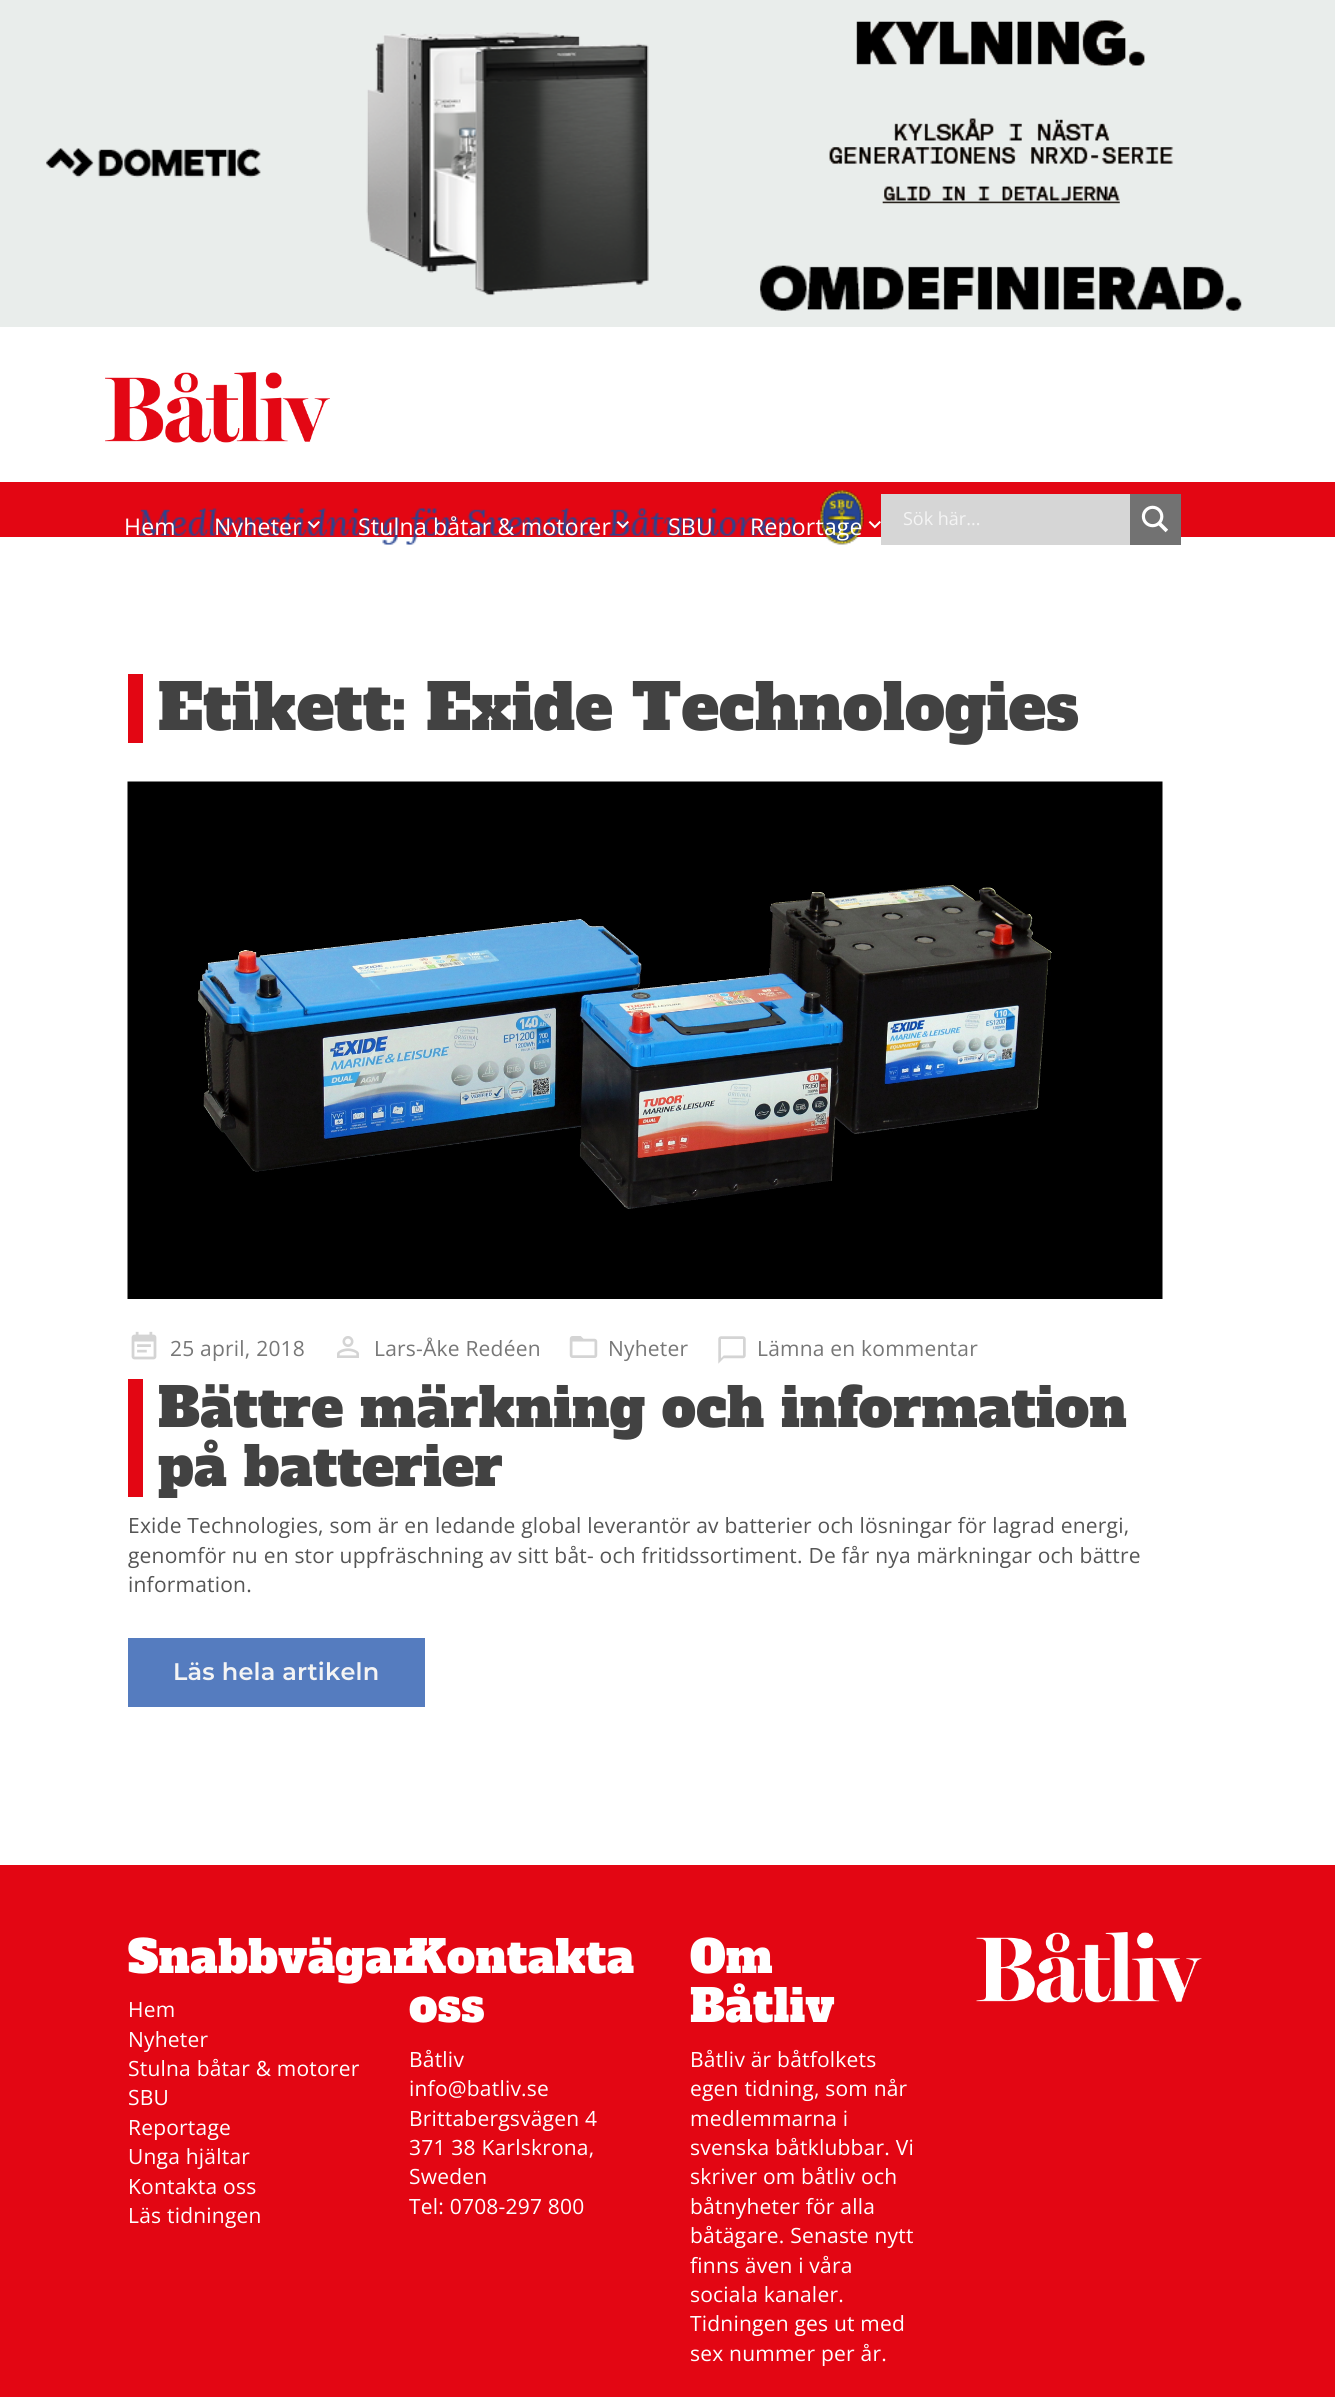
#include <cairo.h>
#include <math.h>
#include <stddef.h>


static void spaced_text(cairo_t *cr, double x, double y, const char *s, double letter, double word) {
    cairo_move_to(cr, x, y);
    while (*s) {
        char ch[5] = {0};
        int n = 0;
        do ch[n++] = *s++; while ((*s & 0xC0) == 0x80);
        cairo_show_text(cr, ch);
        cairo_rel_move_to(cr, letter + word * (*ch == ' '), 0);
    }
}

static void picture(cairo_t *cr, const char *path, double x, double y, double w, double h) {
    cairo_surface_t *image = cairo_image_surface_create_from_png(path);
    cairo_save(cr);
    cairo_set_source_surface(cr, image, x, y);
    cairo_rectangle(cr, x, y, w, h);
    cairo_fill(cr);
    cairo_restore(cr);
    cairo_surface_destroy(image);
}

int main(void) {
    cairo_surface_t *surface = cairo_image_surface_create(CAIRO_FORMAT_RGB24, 1335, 2397);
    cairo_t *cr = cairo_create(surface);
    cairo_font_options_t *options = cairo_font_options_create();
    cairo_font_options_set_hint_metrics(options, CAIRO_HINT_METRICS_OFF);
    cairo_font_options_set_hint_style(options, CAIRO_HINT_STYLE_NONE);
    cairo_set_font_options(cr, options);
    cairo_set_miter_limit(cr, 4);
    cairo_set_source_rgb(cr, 1, 1, 1);
    cairo_paint(cr);
    picture(cr, "img1.png", 0, 0, 1335, 327);
    cairo_set_source_rgb(cr, 0.89, 0.027, 0.078);
    cairo_rectangle(cr, 0, 482, 1335, 55);
    cairo_fill(cr);
    picture(cr, "img2.png", 105, 372, 225, 71);
    picture(cr, "img6.png", 138, 490, 726, 55);
    cairo_select_font_face(cr, "Open Sans", CAIRO_FONT_SLANT_NORMAL, CAIRO_FONT_WEIGHT_NORMAL);
    cairo_set_font_size(cr, 23);
    cairo_set_source_rgb(cr, 1, 1, 1);
    spaced_text(cr, 124, 535, "Hem", 0.21, 0);
    spaced_text(cr, 214, 535, "Nyheter", 0.21, 0);
    picture(cr, "img3.png", 307, 521, 13, 8);
    spaced_text(cr, 358, 535, "Stulna båtar & motorer", 0.21, 0);
    picture(cr, "img4.png", 616, 521, 13, 8);
    spaced_text(cr, 668, 535, "SBU", 0.21, 0);
    spaced_text(cr, 750, 535, "Reportage", 0.21, 0);
    picture(cr, "img5.png", 868, 521, 13, 8);
    cairo_set_source_rgb(cr, 0.839, 0.839, 0.839);
    cairo_rectangle(cr, 881, 494, 249, 51);
    cairo_fill(cr);
    cairo_set_font_size(cr, 18);
    cairo_set_source_rgb(cr, 0.957, 0.957, 0.957);
    cairo_move_to(cr, 903, 525);
    cairo_show_text(cr, "Sök här...");
    cairo_set_source_rgb(cr, 0.447, 0.447, 0.447);
    cairo_rectangle(cr, 1130, 494, 51, 51);
    cairo_fill(cr);
    picture(cr, "img7.png", 1141, 505, 27, 28);
    cairo_set_source_rgb(cr, 0.89, 0.027, 0.078);
    cairo_rectangle(cr, 128, 674, 15, 69);
    cairo_fill(cr);
    cairo_select_font_face(cr, "Alfa Slab One", CAIRO_FONT_SLANT_NORMAL, CAIRO_FONT_WEIGHT_NORMAL);
    cairo_set_font_size(cr, 63);
    cairo_set_source_rgb(cr, 0.259, 0.259, 0.259);
    spaced_text(cr, 158, 730, "Etikett: Exide Technologies", 0.21, 0);
    picture(cr, "img8.png", 127, 781, 1036, 518);
    picture(cr, "img9.png", 131, 1331, 26, 29);
    cairo_select_font_face(cr, "Open Sans", CAIRO_FONT_SLANT_NORMAL, CAIRO_FONT_WEIGHT_NORMAL);
    cairo_set_font_size(cr, 21);
    cairo_set_source_rgb(cr, 0.467, 0.467, 0.467);
    spaced_text(cr, 170, 1356, "25 april, 2018", 0.21, 0);
    picture(cr, "img10.png", 337, 1336, 22, 22);
    spaced_text(cr, 374, 1356, "Lars-Åke Redéen", 0.21, 0);
    picture(cr, "img11.png", 569, 1336, 29, 22);
    spaced_text(cr, 608, 1356, "Nyheter", 0.21, 0);
    picture(cr, "img12.png", 718, 1336, 28, 28);
    spaced_text(cr, 757, 1356, "Lämna en kommentar", 0.21, 0);
    cairo_set_source_rgb(cr, 0.89, 0.027, 0.078);
    cairo_rectangle(cr, 128, 1379, 15, 118);
    cairo_fill(cr);
    cairo_select_font_face(cr, "Alfa Slab One", CAIRO_FONT_SLANT_NORMAL, CAIRO_FONT_WEIGHT_NORMAL);
    cairo_set_font_size(cr, 54);
    cairo_set_source_rgb(cr, 0.259, 0.259, 0.259);
    spaced_text(cr, 158, 1427, "Bättre märkning och information", 0.21, 0);
    spaced_text(cr, 158, 1486, "på batterier", 0.21, 0);
    cairo_select_font_face(cr, "Open Sans", CAIRO_FONT_SLANT_NORMAL, CAIRO_FONT_WEIGHT_NORMAL);
    cairo_set_font_size(cr, 21);
    cairo_set_source_rgb(cr, 0.333, 0.333, 0.333);
    spaced_text(cr, 128, 1533, "Exide Technologies, som är en ledande global leverantör av batterier och lösningar för lagrad energi,", 0.21, 0);
    spaced_text(cr, 128, 1563, "genomför nu en stor uppfräschning av sitt båt- och fritidssortiment. De får nya märkningar och bättre", 0.21, 0);
    spaced_text(cr, 128, 1592, "information.", 0.21, 0);
    cairo_set_source_rgb(cr, 0.333, 0.486, 0.749);
    cairo_rectangle(cr, 128, 1638, 297, 69);
    cairo_fill(cr);
    cairo_select_font_face(cr, "Montserrat SemiBold", CAIRO_FONT_SLANT_NORMAL, CAIRO_FONT_WEIGHT_NORMAL);
    cairo_set_font_size(cr, 24);
    cairo_set_source_rgb(cr, 0.957, 0.957, 0.957);
    spaced_text(cr, 173, 1680, "Läs hela artikeln", 0.21, 0);
    cairo_set_source_rgb(cr, 0.89, 0.027, 0.078);
    cairo_rectangle(cr, 0, 1865, 1335, 532);
    cairo_fill(cr);
    cairo_select_font_face(cr, "Alfa Slab One", CAIRO_FONT_SLANT_NORMAL, CAIRO_FONT_WEIGHT_NORMAL);
    cairo_set_font_size(cr, 45);
    cairo_set_source_rgb(cr, 1, 1, 1);
    spaced_text(cr, 128, 1973, "Snabbvägar", 0.21, 0);
    cairo_select_font_face(cr, "Open Sans", CAIRO_FONT_SLANT_NORMAL, CAIRO_FONT_WEIGHT_NORMAL);
    cairo_set_font_size(cr, 21);
    spaced_text(cr, 128, 2017, "Hem", 0.21, 0);
    spaced_text(cr, 128, 2047, "Nyheter", 0.21, 0);
    spaced_text(cr, 128, 2076, "Stulna båtar & motorer", 0.21, 0);
    spaced_text(cr, 128, 2105, "SBU", 0.21, 0);
    spaced_text(cr, 128, 2135, "Reportage", 0.21, 0);
    spaced_text(cr, 128, 2164, "Unga hjältar", 0.21, 0);
    spaced_text(cr, 128, 2194, "Kontakta oss", 0.21, 0);
    spaced_text(cr, 128, 2223, "Läs tidningen", 0.21, 0);
    cairo_select_font_face(cr, "Alfa Slab One", CAIRO_FONT_SLANT_NORMAL, CAIRO_FONT_WEIGHT_NORMAL);
    cairo_set_font_size(cr, 45);
    spaced_text(cr, 409, 1973, "Kontakta", 0.21, 0);
    spaced_text(cr, 409, 2022, "oss", 0.21, 0);
    cairo_select_font_face(cr, "Open Sans", CAIRO_FONT_SLANT_NORMAL, CAIRO_FONT_WEIGHT_NORMAL);
    cairo_set_font_size(cr, 21);
    spaced_text(cr, 409, 2067, "Båtliv", 0.21, 0);
    spaced_text(cr, 409, 2096, "info@batliv.se", 0.21, 0);
    spaced_text(cr, 409, 2126, "Brittabergsvägen 4", 0.21, 0);
    spaced_text(cr, 409, 2155, "371 38 Karlskrona,", 0.21, 0);
    spaced_text(cr, 409, 2184, "Sweden", 0.21, 0);
    spaced_text(cr, 409, 2214, "Tel: 0708-297 800", 0.21, 0);
    cairo_select_font_face(cr, "Alfa Slab One", CAIRO_FONT_SLANT_NORMAL, CAIRO_FONT_WEIGHT_NORMAL);
    cairo_set_font_size(cr, 45);
    spaced_text(cr, 690, 1973, "Om", 0.21, 0);
    spaced_text(cr, 690, 2022, "Båtliv", 0.21, 0);
    cairo_select_font_face(cr, "Open Sans", CAIRO_FONT_SLANT_NORMAL, CAIRO_FONT_WEIGHT_NORMAL);
    cairo_set_font_size(cr, 21);
    spaced_text(cr, 690, 2067, "Båtliv är båtfolkets", 0.21, 0);
    spaced_text(cr, 690, 2096, "egen tidning, som når", 0.21, 0);
    spaced_text(cr, 690, 2126, "medlemmarna i", 0.21, 0);
    spaced_text(cr, 690, 2155, "svenska båtklubbar. Vi", 0.21, 0);
    spaced_text(cr, 690, 2184, "skriver om båtliv och", 0.21, 0);
    spaced_text(cr, 690, 2214, "båtnyheter för alla", 0.21, 0);
    spaced_text(cr, 690, 2243, "båtägare. Senaste nytt", 0.21, 0);
    spaced_text(cr, 690, 2273, "finns även i våra", 0.21, 0);
    spaced_text(cr, 690, 2302, "sociala kanaler.", 0.21, 0);
    spaced_text(cr, 690, 2331, "Tidningen ges ut med", 0.21, 0);
    spaced_text(cr, 690, 2361, "sex nummer per år.", 0.21, 0);
    picture(cr, "img13.png", 976, 1932, 226, 71);
    cairo_surface_write_to_png(surface, "page.png");
    cairo_font_options_destroy(options);
    cairo_destroy(cr);
    cairo_surface_destroy(surface);
    return 0;
}
